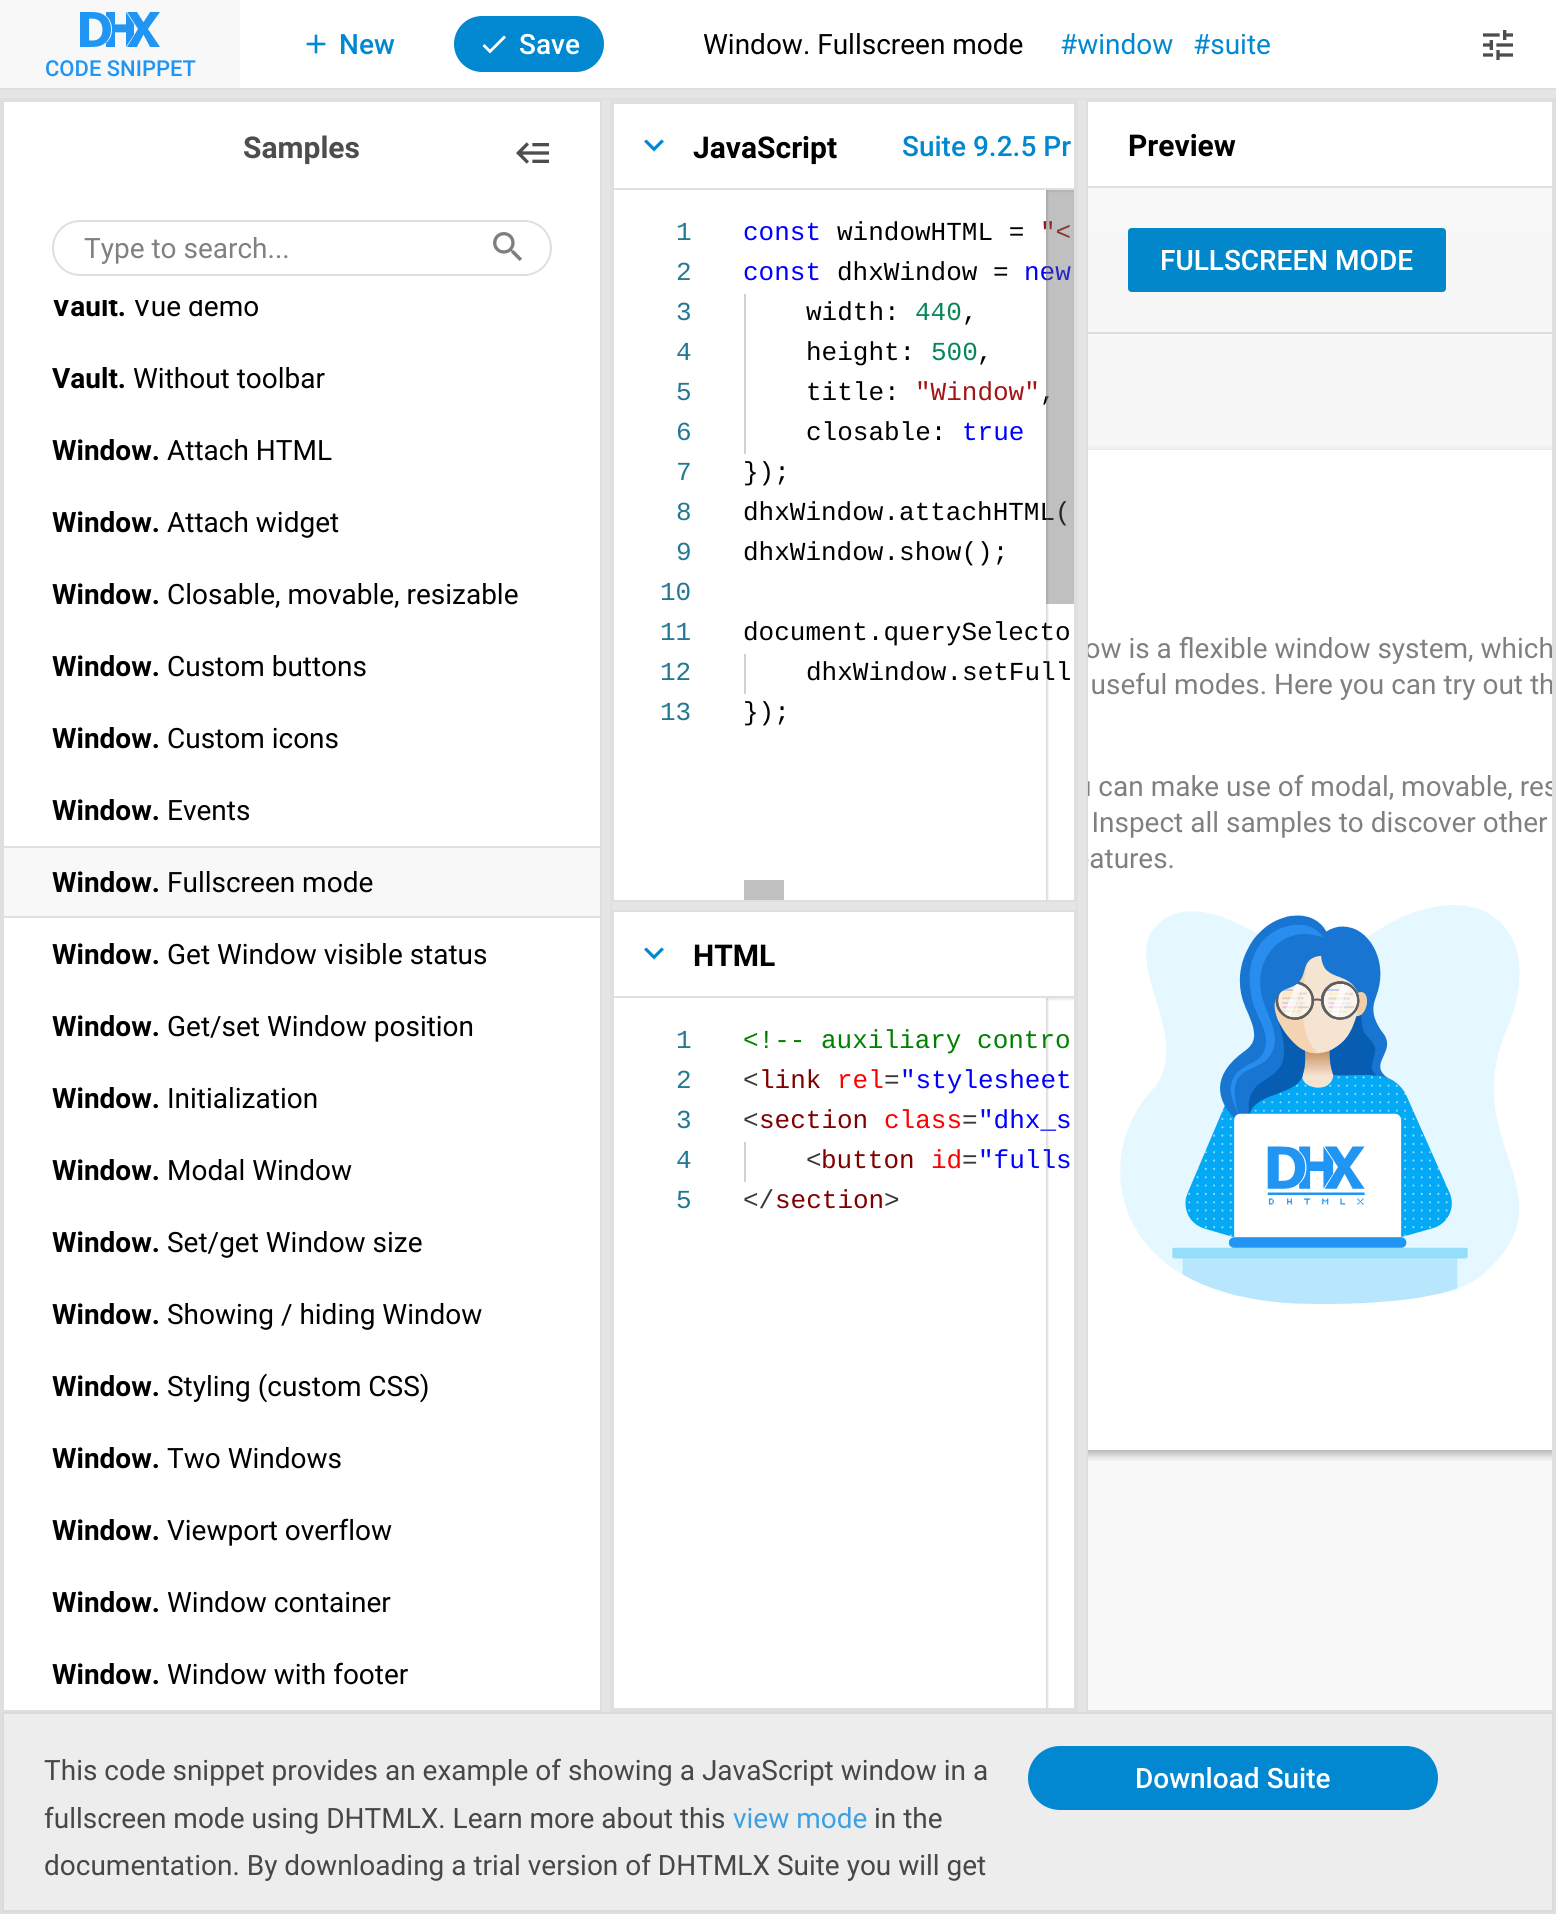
#include <cairo.h>
#include <math.h>
#include <stddef.h>


static void round_rect(cairo_t *cr, double x, double y, double w, double h, double r) {
    cairo_new_sub_path(cr);
    cairo_arc(cr, x + w - r, y + h - r, r, 0, M_PI / 2);
    cairo_arc(cr, x + r, y + h - r, r, M_PI / 2, M_PI);
    cairo_arc(cr, x + r, y + r, r, M_PI, 1.5 * M_PI);
    cairo_arc(cr, x + w - r, y + r, r, 1.5 * M_PI, 2 * M_PI);
    cairo_close_path(cr);
}

static void picture(cairo_t *cr, const char *path, double x, double y, double w, double h) {
    cairo_surface_t *image = cairo_image_surface_create_from_png(path);
    cairo_save(cr);
    cairo_set_source_surface(cr, image, x, y);
    cairo_rectangle(cr, x, y, w, h);
    cairo_fill(cr);
    cairo_restore(cr);
    cairo_surface_destroy(image);
}

int main(void) {
    cairo_surface_t *surface = cairo_image_surface_create(CAIRO_FORMAT_RGB24, 1556, 1914);
    cairo_t *cr = cairo_create(surface);
    cairo_font_options_t *options = cairo_font_options_create();
    cairo_font_options_set_hint_metrics(options, CAIRO_HINT_METRICS_OFF);
    cairo_font_options_set_hint_style(options, CAIRO_HINT_STYLE_NONE);
    cairo_set_font_options(cr, options);
    cairo_set_miter_limit(cr, 4);
    cairo_set_source_rgb(cr, 0.898, 0.898, 0.898);
    cairo_paint(cr);
    cairo_set_source_rgb(cr, 1, 1, 1);
    cairo_rectangle(cr, 240, 0, 1316, 88);
    cairo_fill(cr);
    cairo_set_source_rgb(cr, 0.875, 0.875, 0.875);
    cairo_rectangle(cr, 0, 88, 1556, 2);
    cairo_fill(cr);
    picture(cr, "img1.png", 306, 34, 20, 20);
    cairo_select_font_face(cr, "Roboto Medium", CAIRO_FONT_SLANT_NORMAL, CAIRO_FONT_WEIGHT_NORMAL);
    cairo_set_font_size(cr, 28);
    cairo_set_source_rgb(cr, 0.008, 0.533, 0.82);
    cairo_move_to(cr, 339, 54);
    cairo_show_text(cr, "New");
    round_rect(cr, 454, 16, 150, 56, 28);
    cairo_fill(cr);
    cairo_set_source_rgb(cr, 1, 1, 1);
    cairo_new_path(cr);
    cairo_move_to(cr, 506, 37.5);
    cairo_line_to(cr, 490, 53.5);
    cairo_line_to(cr, 482.5, 46);
    cairo_line_to(cr, 484.5, 44);
    cairo_line_to(cr, 490, 49.5);
    cairo_line_to(cr, 504, 35.5);
    cairo_close_path(cr);
    cairo_fill(cr);
    cairo_move_to(cr, 519, 54);
    cairo_show_text(cr, "Save");
    cairo_select_font_face(cr, "Roboto", CAIRO_FONT_SLANT_NORMAL, CAIRO_FONT_WEIGHT_NORMAL);
    cairo_set_source_rgb(cr, 0, 0, 0);
    cairo_move_to(cr, 703, 54);
    cairo_show_text(cr, "Window. Fullscreen mode");
    cairo_set_source_rgb(cr, 0.008, 0.533, 0.82);
    cairo_move_to(cr, 1060, 54);
    cairo_show_text(cr, "#window");
    cairo_move_to(cr, 1193, 54);
    cairo_show_text(cr, "#suite");
    picture(cr, "img2.png", 1483, 30, 30, 30);
    cairo_set_source_rgb(cr, 0.969, 0.969, 0.969);
    cairo_rectangle(cr, 0, 0, 240, 88);
    cairo_fill(cr);
    picture(cr, "img3.png", 80, 12, 80, 35);
    cairo_select_font_face(cr, "Roboto Medium", CAIRO_FONT_SLANT_NORMAL, CAIRO_FONT_WEIGHT_NORMAL);
    cairo_set_font_size(cr, 22);
    cairo_set_source_rgb(cr, 0.125, 0.584, 0.953);
    cairo_move_to(cr, 45, 76);
    cairo_show_text(cr, "CODE SNIPPET");
    cairo_rectangle(cr, 1, 99, 1554, 1814);
    cairo_set_source_rgb(cr, 0.875, 0.875, 0.875);
    cairo_stroke(cr);
    cairo_set_source_rgb(cr, 1, 1, 1);
    cairo_rectangle(cr, 3, 101, 598, 1610);
    cairo_fill_preserve(cr);
    cairo_set_source_rgb(cr, 0.875, 0.875, 0.875);
    cairo_stroke(cr);
    cairo_select_font_face(cr, "Roboto", CAIRO_FONT_SLANT_NORMAL, CAIRO_FONT_WEIGHT_BOLD);
    cairo_set_font_size(cr, 30);
    cairo_set_source_rgb(cr, 0.302, 0.302, 0.302);
    cairo_move_to(cr, 243, 158);
    cairo_show_text(cr, "Samples");
    picture(cr, "img4.png", 516, 142, 33, 22);
    round_rect(cr, 53, 221, 498, 54, 27);
    cairo_set_source_rgb(cr, 0.875, 0.875, 0.875);
    cairo_stroke(cr);
    cairo_select_font_face(cr, "Roboto", CAIRO_FONT_SLANT_NORMAL, CAIRO_FONT_WEIGHT_NORMAL);
    cairo_set_font_size(cr, 28);
    cairo_set_source_rgb(cr, 0.502, 0.502, 0.502);
    cairo_move_to(cr, 84, 258);
    cairo_show_text(cr, "Type to search...");
    picture(cr, "img5.png", 493, 232, 29, 29);
    cairo_save(cr);
    cairo_rectangle(cr, 4, 300, 596, 42);
    cairo_clip(cr);
    cairo_select_font_face(cr, "Roboto", CAIRO_FONT_SLANT_NORMAL, CAIRO_FONT_WEIGHT_BOLD);
    cairo_set_source_rgb(cr, 0, 0, 0);
    cairo_move_to(cr, 52, 316);
    cairo_show_text(cr, "Vault.");
    cairo_select_font_face(cr, "Roboto", CAIRO_FONT_SLANT_NORMAL, CAIRO_FONT_WEIGHT_NORMAL);
    cairo_move_to(cr, 133, 316);
    cairo_show_text(cr, "Vue demo");
    cairo_restore(cr);
    cairo_select_font_face(cr, "Roboto", CAIRO_FONT_SLANT_NORMAL, CAIRO_FONT_WEIGHT_BOLD);
    cairo_set_source_rgb(cr, 0, 0, 0);
    cairo_move_to(cr, 52, 388);
    cairo_show_text(cr, "Vault.");
    cairo_select_font_face(cr, "Roboto", CAIRO_FONT_SLANT_NORMAL, CAIRO_FONT_WEIGHT_NORMAL);
    cairo_move_to(cr, 133, 388);
    cairo_show_text(cr, "Without toolbar");
    cairo_select_font_face(cr, "Roboto", CAIRO_FONT_SLANT_NORMAL, CAIRO_FONT_WEIGHT_BOLD);
    cairo_move_to(cr, 52, 460);
    cairo_show_text(cr, "Window.");
    cairo_select_font_face(cr, "Roboto", CAIRO_FONT_SLANT_NORMAL, CAIRO_FONT_WEIGHT_NORMAL);
    cairo_move_to(cr, 167, 460);
    cairo_show_text(cr, "Attach HTML");
    cairo_select_font_face(cr, "Roboto", CAIRO_FONT_SLANT_NORMAL, CAIRO_FONT_WEIGHT_BOLD);
    cairo_move_to(cr, 52, 532);
    cairo_show_text(cr, "Window.");
    cairo_select_font_face(cr, "Roboto", CAIRO_FONT_SLANT_NORMAL, CAIRO_FONT_WEIGHT_NORMAL);
    cairo_move_to(cr, 167, 532);
    cairo_show_text(cr, "Attach widget");
    cairo_select_font_face(cr, "Roboto", CAIRO_FONT_SLANT_NORMAL, CAIRO_FONT_WEIGHT_BOLD);
    cairo_move_to(cr, 52, 604);
    cairo_show_text(cr, "Window.");
    cairo_select_font_face(cr, "Roboto", CAIRO_FONT_SLANT_NORMAL, CAIRO_FONT_WEIGHT_NORMAL);
    cairo_move_to(cr, 167, 604);
    cairo_show_text(cr, "Closable, movable, resizable");
    cairo_select_font_face(cr, "Roboto", CAIRO_FONT_SLANT_NORMAL, CAIRO_FONT_WEIGHT_BOLD);
    cairo_move_to(cr, 52, 676);
    cairo_show_text(cr, "Window.");
    cairo_select_font_face(cr, "Roboto", CAIRO_FONT_SLANT_NORMAL, CAIRO_FONT_WEIGHT_NORMAL);
    cairo_move_to(cr, 167, 676);
    cairo_show_text(cr, "Custom buttons");
    cairo_select_font_face(cr, "Roboto", CAIRO_FONT_SLANT_NORMAL, CAIRO_FONT_WEIGHT_BOLD);
    cairo_move_to(cr, 52, 748);
    cairo_show_text(cr, "Window.");
    cairo_select_font_face(cr, "Roboto", CAIRO_FONT_SLANT_NORMAL, CAIRO_FONT_WEIGHT_NORMAL);
    cairo_move_to(cr, 167, 748);
    cairo_show_text(cr, "Custom icons");
    cairo_select_font_face(cr, "Roboto", CAIRO_FONT_SLANT_NORMAL, CAIRO_FONT_WEIGHT_BOLD);
    cairo_move_to(cr, 52, 820);
    cairo_show_text(cr, "Window.");
    cairo_select_font_face(cr, "Roboto", CAIRO_FONT_SLANT_NORMAL, CAIRO_FONT_WEIGHT_NORMAL);
    cairo_move_to(cr, 167, 820);
    cairo_show_text(cr, "Events");
    cairo_set_source_rgb(cr, 0.969, 0.969, 0.969);
    cairo_rectangle(cr, 4, 848, 596, 68);
    cairo_fill(cr);
    cairo_set_source_rgb(cr, 0.878, 0.878, 0.878);
    cairo_rectangle(cr, 4, 846, 596, 2);
    cairo_fill(cr);
    cairo_select_font_face(cr, "Roboto", CAIRO_FONT_SLANT_NORMAL, CAIRO_FONT_WEIGHT_BOLD);
    cairo_set_source_rgb(cr, 0, 0, 0);
    cairo_move_to(cr, 52, 892);
    cairo_show_text(cr, "Window.");
    cairo_select_font_face(cr, "Roboto", CAIRO_FONT_SLANT_NORMAL, CAIRO_FONT_WEIGHT_NORMAL);
    cairo_move_to(cr, 167, 892);
    cairo_show_text(cr, "Fullscreen mode");
    cairo_set_source_rgb(cr, 0.878, 0.878, 0.878);
    cairo_rectangle(cr, 4, 916, 596, 2);
    cairo_fill(cr);
    cairo_select_font_face(cr, "Roboto", CAIRO_FONT_SLANT_NORMAL, CAIRO_FONT_WEIGHT_BOLD);
    cairo_set_source_rgb(cr, 0, 0, 0);
    cairo_move_to(cr, 52, 964);
    cairo_show_text(cr, "Window.");
    cairo_select_font_face(cr, "Roboto", CAIRO_FONT_SLANT_NORMAL, CAIRO_FONT_WEIGHT_NORMAL);
    cairo_move_to(cr, 167, 964);
    cairo_show_text(cr, "Get Window visible status");
    cairo_select_font_face(cr, "Roboto", CAIRO_FONT_SLANT_NORMAL, CAIRO_FONT_WEIGHT_BOLD);
    cairo_move_to(cr, 52, 1036);
    cairo_show_text(cr, "Window.");
    cairo_select_font_face(cr, "Roboto", CAIRO_FONT_SLANT_NORMAL, CAIRO_FONT_WEIGHT_NORMAL);
    cairo_move_to(cr, 167, 1036);
    cairo_show_text(cr, "Get/set Window position");
    cairo_select_font_face(cr, "Roboto", CAIRO_FONT_SLANT_NORMAL, CAIRO_FONT_WEIGHT_BOLD);
    cairo_move_to(cr, 52, 1108);
    cairo_show_text(cr, "Window.");
    cairo_select_font_face(cr, "Roboto", CAIRO_FONT_SLANT_NORMAL, CAIRO_FONT_WEIGHT_NORMAL);
    cairo_move_to(cr, 167, 1108);
    cairo_show_text(cr, "Initialization");
    cairo_select_font_face(cr, "Roboto", CAIRO_FONT_SLANT_NORMAL, CAIRO_FONT_WEIGHT_BOLD);
    cairo_move_to(cr, 52, 1180);
    cairo_show_text(cr, "Window.");
    cairo_select_font_face(cr, "Roboto", CAIRO_FONT_SLANT_NORMAL, CAIRO_FONT_WEIGHT_NORMAL);
    cairo_move_to(cr, 167, 1180);
    cairo_show_text(cr, "Modal Window");
    cairo_select_font_face(cr, "Roboto", CAIRO_FONT_SLANT_NORMAL, CAIRO_FONT_WEIGHT_BOLD);
    cairo_move_to(cr, 52, 1252);
    cairo_show_text(cr, "Window.");
    cairo_select_font_face(cr, "Roboto", CAIRO_FONT_SLANT_NORMAL, CAIRO_FONT_WEIGHT_NORMAL);
    cairo_move_to(cr, 167, 1252);
    cairo_show_text(cr, "Set/get Window size");
    cairo_select_font_face(cr, "Roboto", CAIRO_FONT_SLANT_NORMAL, CAIRO_FONT_WEIGHT_BOLD);
    cairo_move_to(cr, 52, 1324);
    cairo_show_text(cr, "Window.");
    cairo_select_font_face(cr, "Roboto", CAIRO_FONT_SLANT_NORMAL, CAIRO_FONT_WEIGHT_NORMAL);
    cairo_move_to(cr, 167, 1324);
    cairo_show_text(cr, "Showing / hiding Window");
    cairo_select_font_face(cr, "Roboto", CAIRO_FONT_SLANT_NORMAL, CAIRO_FONT_WEIGHT_BOLD);
    cairo_move_to(cr, 52, 1396);
    cairo_show_text(cr, "Window.");
    cairo_select_font_face(cr, "Roboto", CAIRO_FONT_SLANT_NORMAL, CAIRO_FONT_WEIGHT_NORMAL);
    cairo_move_to(cr, 167, 1396);
    cairo_show_text(cr, "Styling (custom CSS)");
    cairo_select_font_face(cr, "Roboto", CAIRO_FONT_SLANT_NORMAL, CAIRO_FONT_WEIGHT_BOLD);
    cairo_move_to(cr, 52, 1468);
    cairo_show_text(cr, "Window.");
    cairo_select_font_face(cr, "Roboto", CAIRO_FONT_SLANT_NORMAL, CAIRO_FONT_WEIGHT_NORMAL);
    cairo_move_to(cr, 167, 1468);
    cairo_show_text(cr, "Two Windows");
    cairo_select_font_face(cr, "Roboto", CAIRO_FONT_SLANT_NORMAL, CAIRO_FONT_WEIGHT_BOLD);
    cairo_move_to(cr, 52, 1540);
    cairo_show_text(cr, "Window.");
    cairo_select_font_face(cr, "Roboto", CAIRO_FONT_SLANT_NORMAL, CAIRO_FONT_WEIGHT_NORMAL);
    cairo_move_to(cr, 167, 1540);
    cairo_show_text(cr, "Viewport overflow");
    cairo_select_font_face(cr, "Roboto", CAIRO_FONT_SLANT_NORMAL, CAIRO_FONT_WEIGHT_BOLD);
    cairo_move_to(cr, 52, 1612);
    cairo_show_text(cr, "Window.");
    cairo_select_font_face(cr, "Roboto", CAIRO_FONT_SLANT_NORMAL, CAIRO_FONT_WEIGHT_NORMAL);
    cairo_move_to(cr, 167, 1612);
    cairo_show_text(cr, "Window container");
    cairo_select_font_face(cr, "Roboto", CAIRO_FONT_SLANT_NORMAL, CAIRO_FONT_WEIGHT_BOLD);
    cairo_move_to(cr, 52, 1684);
    cairo_show_text(cr, "Window.");
    cairo_select_font_face(cr, "Roboto", CAIRO_FONT_SLANT_NORMAL, CAIRO_FONT_WEIGHT_NORMAL);
    cairo_move_to(cr, 167, 1684);
    cairo_show_text(cr, "Window with footer");
    cairo_set_source_rgb(cr, 1, 1, 1);
    cairo_rectangle(cr, 614, 104, 460, 1604);
    cairo_fill(cr);
    cairo_rectangle(cr, 611, 101, 466, 1610);
    cairo_set_source_rgb(cr, 0.875, 0.875, 0.875);
    cairo_stroke(cr);
    cairo_rectangle(cr, 613, 103, 462, 798);
    cairo_stroke(cr);
    cairo_set_source_rgb(cr, 0.878, 0.878, 0.878);
    cairo_rectangle(cr, 614, 188, 460, 2);
    cairo_fill(cr);
    cairo_set_source_rgb(cr, 0.008, 0.533, 0.82);
    cairo_new_path(cr);
    cairo_move_to(cr, 646.5, 139.5);
    cairo_line_to(cr, 654, 147);
    cairo_line_to(cr, 661.5, 139.5);
    cairo_line_to(cr, 664, 141.5);
    cairo_line_to(cr, 654, 151.5);
    cairo_line_to(cr, 644, 141.5);
    cairo_close_path(cr);
    cairo_fill(cr);
    cairo_select_font_face(cr, "Roboto", CAIRO_FONT_SLANT_NORMAL, CAIRO_FONT_WEIGHT_BOLD);
    cairo_set_font_size(cr, 30);
    cairo_set_source_rgb(cr, 0, 0, 0);
    cairo_move_to(cr, 693, 158);
    cairo_show_text(cr, "JavaScript");
    cairo_select_font_face(cr, "Roboto Medium", CAIRO_FONT_SLANT_NORMAL, CAIRO_FONT_WEIGHT_NORMAL);
    cairo_set_font_size(cr, 28);
    cairo_set_source_rgb(cr, 0.008, 0.533, 0.82);
    cairo_move_to(cr, 902, 156);
    cairo_show_text(cr, "Suite 9.2.5 Pr");
    cairo_select_font_face(cr, "Liberation Mono", CAIRO_FONT_SLANT_NORMAL, CAIRO_FONT_WEIGHT_NORMAL);
    cairo_set_font_size(cr, 26);
    cairo_set_source_rgb(cr, 0.137, 0.471, 0.576);
    cairo_move_to(cr, 676, 240);
    cairo_show_text(cr, "1");
    cairo_move_to(cr, 676, 280);
    cairo_show_text(cr, "2");
    cairo_move_to(cr, 676, 320);
    cairo_show_text(cr, "3");
    cairo_move_to(cr, 676, 360);
    cairo_show_text(cr, "4");
    cairo_move_to(cr, 676, 400);
    cairo_show_text(cr, "5");
    cairo_move_to(cr, 676, 440);
    cairo_show_text(cr, "6");
    cairo_move_to(cr, 676, 480);
    cairo_show_text(cr, "7");
    cairo_move_to(cr, 676, 520);
    cairo_show_text(cr, "8");
    cairo_move_to(cr, 676, 560);
    cairo_show_text(cr, "9");
    cairo_move_to(cr, 660, 600);
    cairo_show_text(cr, "10");
    cairo_move_to(cr, 660, 640);
    cairo_show_text(cr, "11");
    cairo_move_to(cr, 660, 680);
    cairo_show_text(cr, "12");
    cairo_move_to(cr, 660, 720);
    cairo_show_text(cr, "13");
    cairo_set_source_rgb(cr, 0.639, 0.082, 0.082);
    cairo_move_to(cr, 1040, 240);
    cairo_show_text(cr, "\"<");
    cairo_set_source_rgb(cr, 0, 0, 1);
    cairo_move_to(cr, 1024, 280);
    cairo_show_text(cr, "new");
    cairo_set_source_rgb(cr, 0, 0, 0);
    cairo_move_to(cr, 1040, 400);
    cairo_show_text(cr, ",");
    cairo_move_to(cr, 743, 520);
    cairo_show_text(cr, "dhxWindow.attachHTML(");
    cairo_move_to(cr, 743, 640);
    cairo_show_text(cr, "document.querySelecto");
    cairo_move_to(cr, 806, 680);
    cairo_show_text(cr, "dhxWindow.setFull");
    picture(cr, "img6.png", 1046, 190, 28, 710);
    cairo_set_source_rgba(cr, 0.388, 0.388, 0.388, 0.4);
    cairo_rectangle(cr, 1046, 190, 28, 414);
    cairo_fill(cr);
    cairo_set_source_rgb(cr, 0, 0, 1);
    cairo_move_to(cr, 743, 240);
    cairo_show_text(cr, "const");
    cairo_set_source_rgb(cr, 0, 0, 0);
    cairo_move_to(cr, 837, 240);
    cairo_show_text(cr, "windowHTML =");
    cairo_set_source_rgb(cr, 0, 0, 1);
    cairo_move_to(cr, 743, 280);
    cairo_show_text(cr, "const");
    cairo_set_source_rgb(cr, 0, 0, 0);
    cairo_move_to(cr, 837, 280);
    cairo_show_text(cr, "dhxWindow =");
    cairo_move_to(cr, 806, 320);
    cairo_show_text(cr, "width:");
    cairo_set_source_rgb(cr, 0.035, 0.525, 0.345);
    cairo_move_to(cr, 915, 320);
    cairo_show_text(cr, "440");
    cairo_set_source_rgb(cr, 0, 0, 0);
    cairo_move_to(cr, 962, 320);
    cairo_show_text(cr, ",");
    cairo_move_to(cr, 806, 360);
    cairo_show_text(cr, "height:");
    cairo_set_source_rgb(cr, 0.035, 0.525, 0.345);
    cairo_move_to(cr, 931, 360);
    cairo_show_text(cr, "500");
    cairo_set_source_rgb(cr, 0, 0, 0);
    cairo_move_to(cr, 977, 360);
    cairo_show_text(cr, ",");
    cairo_move_to(cr, 806, 400);
    cairo_show_text(cr, "title:");
    cairo_set_source_rgb(cr, 0.639, 0.082, 0.082);
    cairo_move_to(cr, 915, 400);
    cairo_show_text(cr, "\"Window\"");
    cairo_set_source_rgb(cr, 0, 0, 0);
    cairo_move_to(cr, 806, 440);
    cairo_show_text(cr, "closable:");
    cairo_set_source_rgb(cr, 0, 0, 1);
    cairo_move_to(cr, 962, 440);
    cairo_show_text(cr, "true");
    cairo_set_source_rgb(cr, 0, 0, 0);
    cairo_move_to(cr, 743, 480);
    cairo_show_text(cr, "});");
    cairo_move_to(cr, 743, 560);
    cairo_show_text(cr, "dhxWindow.show();");
    cairo_move_to(cr, 743, 720);
    cairo_show_text(cr, "});");
    cairo_set_source_rgb(cr, 0.827, 0.827, 0.827);
    cairo_rectangle(cr, 744, 294, 2, 160);
    cairo_fill(cr);
    cairo_rectangle(cr, 744, 654, 2, 40);
    cairo_fill(cr);
    cairo_set_source_rgb(cr, 0.757, 0.757, 0.757);
    cairo_rectangle(cr, 744, 880, 40, 20);
    cairo_fill(cr);
    cairo_set_source_rgb(cr, 0.898, 0.898, 0.898);
    cairo_rectangle(cr, 612, 902, 464, 8);
    cairo_fill(cr);
    cairo_rectangle(cr, 613, 911, 462, 798);
    cairo_set_source_rgb(cr, 0.875, 0.875, 0.875);
    cairo_stroke(cr);
    cairo_set_source_rgb(cr, 0.878, 0.878, 0.878);
    cairo_rectangle(cr, 614, 996, 460, 2);
    cairo_fill(cr);
    cairo_set_source_rgb(cr, 0.008, 0.533, 0.82);
    cairo_new_path(cr);
    cairo_move_to(cr, 646.5, 947.5);
    cairo_line_to(cr, 654, 955);
    cairo_line_to(cr, 661.5, 947.5);
    cairo_line_to(cr, 664, 949.5);
    cairo_line_to(cr, 654, 959.5);
    cairo_line_to(cr, 644, 949.5);
    cairo_close_path(cr);
    cairo_fill(cr);
    cairo_select_font_face(cr, "Roboto", CAIRO_FONT_SLANT_NORMAL, CAIRO_FONT_WEIGHT_BOLD);
    cairo_set_font_size(cr, 30);
    cairo_set_source_rgb(cr, 0, 0, 0);
    cairo_move_to(cr, 693, 966);
    cairo_show_text(cr, "HTML");
    cairo_select_font_face(cr, "Liberation Mono", CAIRO_FONT_SLANT_NORMAL, CAIRO_FONT_WEIGHT_NORMAL);
    cairo_set_font_size(cr, 26);
    cairo_set_source_rgb(cr, 0.137, 0.471, 0.576);
    cairo_move_to(cr, 676, 1048);
    cairo_show_text(cr, "1");
    cairo_move_to(cr, 676, 1088);
    cairo_show_text(cr, "2");
    cairo_move_to(cr, 676, 1128);
    cairo_show_text(cr, "3");
    cairo_move_to(cr, 676, 1168);
    cairo_show_text(cr, "4");
    cairo_move_to(cr, 676, 1208);
    cairo_show_text(cr, "5");
    cairo_set_source_rgb(cr, 0, 0.502, 0);
    cairo_move_to(cr, 743, 1048);
    cairo_show_text(cr, "<!-- auxiliary contro");
    cairo_set_source_rgb(cr, 0, 0, 1);
    cairo_move_to(cr, 900, 1088);
    cairo_show_text(cr, "\"stylesheet");
    cairo_move_to(cr, 978, 1128);
    cairo_show_text(cr, "\"dhx_s");
    cairo_move_to(cr, 978, 1168);
    cairo_show_text(cr, "\"fulls");
    picture(cr, "img7.png", 1046, 998, 28, 710);
    cairo_set_source_rgb(cr, 0.22, 0.22, 0.22);
    cairo_move_to(cr, 743, 1088);
    cairo_show_text(cr, "<");
    cairo_set_source_rgb(cr, 0.502, 0, 0);
    cairo_move_to(cr, 759, 1088);
    cairo_show_text(cr, "link");
    cairo_set_source_rgb(cr, 1, 0, 0);
    cairo_move_to(cr, 837, 1088);
    cairo_show_text(cr, "rel");
    cairo_set_source_rgb(cr, 0.22, 0.22, 0.22);
    cairo_move_to(cr, 884, 1088);
    cairo_show_text(cr, "=");
    cairo_move_to(cr, 743, 1128);
    cairo_show_text(cr, "<");
    cairo_set_source_rgb(cr, 0.502, 0, 0);
    cairo_move_to(cr, 759, 1128);
    cairo_show_text(cr, "section");
    cairo_set_source_rgb(cr, 1, 0, 0);
    cairo_move_to(cr, 884, 1128);
    cairo_show_text(cr, "class");
    cairo_set_source_rgb(cr, 0.22, 0.22, 0.22);
    cairo_move_to(cr, 962, 1128);
    cairo_show_text(cr, "=");
    cairo_move_to(cr, 806, 1168);
    cairo_show_text(cr, "<");
    cairo_set_source_rgb(cr, 0.502, 0, 0);
    cairo_move_to(cr, 821, 1168);
    cairo_show_text(cr, "button");
    cairo_set_source_rgb(cr, 1, 0, 0);
    cairo_move_to(cr, 931, 1168);
    cairo_show_text(cr, "id");
    cairo_set_source_rgb(cr, 0.22, 0.22, 0.22);
    cairo_move_to(cr, 962, 1168);
    cairo_show_text(cr, "=");
    cairo_move_to(cr, 743, 1208);
    cairo_show_text(cr, "</");
    cairo_set_source_rgb(cr, 0.502, 0, 0);
    cairo_move_to(cr, 775, 1208);
    cairo_show_text(cr, "section");
    cairo_set_source_rgb(cr, 0.22, 0.22, 0.22);
    cairo_move_to(cr, 884, 1208);
    cairo_show_text(cr, ">");
    cairo_set_source_rgb(cr, 0.827, 0.827, 0.827);
    cairo_rectangle(cr, 744, 1142, 2, 40);
    cairo_fill(cr);
    cairo_set_source_rgb(cr, 1, 1, 1);
    cairo_rectangle(cr, 1088, 102, 464, 84);
    cairo_fill(cr);
    cairo_rectangle(cr, 1087, 101, 466, 1610);
    cairo_set_source_rgb(cr, 0.875, 0.875, 0.875);
    cairo_stroke(cr);
    cairo_set_source_rgb(cr, 0.878, 0.878, 0.878);
    cairo_rectangle(cr, 1088, 186, 464, 2);
    cairo_fill(cr);
    cairo_select_font_face(cr, "Roboto", CAIRO_FONT_SLANT_NORMAL, CAIRO_FONT_WEIGHT_BOLD);
    cairo_set_font_size(cr, 30);
    cairo_set_source_rgb(cr, 0, 0, 0);
    cairo_move_to(cr, 1128, 156);
    cairo_show_text(cr, "Preview");
    cairo_set_source_rgb(cr, 0.969, 0.969, 0.969);
    cairo_rectangle(cr, 1088, 188, 464, 1522);
    cairo_fill(cr);
    picture(cr, "img8.png", 1088, 228, 464, 1233);
    cairo_set_source_rgb(cr, 0.929, 0.929, 0.929);
    cairo_rectangle(cr, 3, 1713, 1550, 198);
    cairo_fill_preserve(cr);
    cairo_set_source_rgb(cr, 0.859, 0.859, 0.855);
    cairo_stroke(cr);
    cairo_select_font_face(cr, "Roboto", CAIRO_FONT_SLANT_NORMAL, CAIRO_FONT_WEIGHT_NORMAL);
    cairo_set_font_size(cr, 28);
    cairo_set_source_rgb(cr, 0.278, 0.278, 0.278);
    cairo_move_to(cr, 44, 1780);
    cairo_show_text(cr, "This code snippet provides an example of showing a JavaScript window in a");
    cairo_move_to(cr, 44, 1828);
    cairo_show_text(cr, "fullscreen mode using DHTMLX. Learn more about this");
    cairo_set_source_rgb(cr, 0.239, 0.627, 0.89);
    cairo_move_to(cr, 733, 1828);
    cairo_show_text(cr, "view mode");
    cairo_set_source_rgb(cr, 0.278, 0.278, 0.278);
    cairo_move_to(cr, 874, 1828);
    cairo_show_text(cr, "in the");
    cairo_move_to(cr, 44, 1875);
    cairo_show_text(cr, "documentation. By downloading a trial version of DHTMLX Suite you will get");
    cairo_set_source_rgb(cr, 0.008, 0.533, 0.82);
    round_rect(cr, 1028, 1746, 410, 64, 32);
    cairo_fill(cr);
    cairo_select_font_face(cr, "Roboto Medium", CAIRO_FONT_SLANT_NORMAL, CAIRO_FONT_WEIGHT_NORMAL);
    cairo_set_source_rgb(cr, 1, 1, 1);
    cairo_move_to(cr, 1135, 1788);
    cairo_show_text(cr, "Download Suite");
    cairo_surface_write_to_png(surface, "page.png");
    cairo_font_options_destroy(options);
    cairo_destroy(cr);
    cairo_surface_destroy(surface);
    return 0;
}
